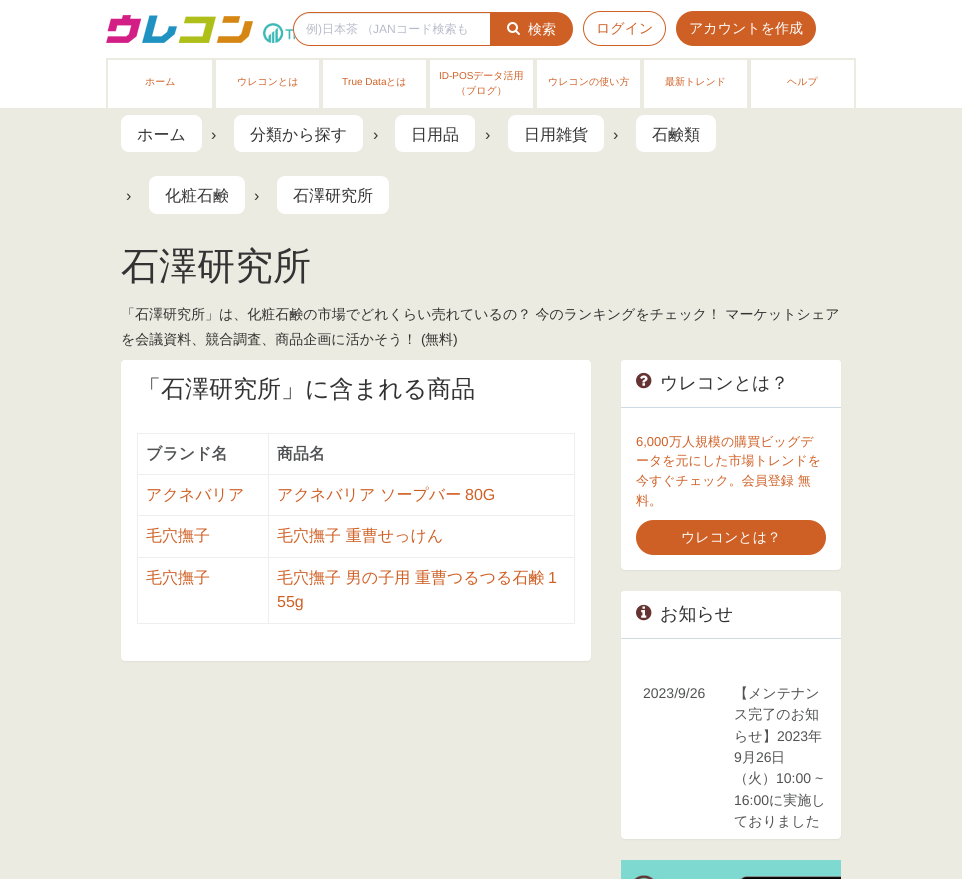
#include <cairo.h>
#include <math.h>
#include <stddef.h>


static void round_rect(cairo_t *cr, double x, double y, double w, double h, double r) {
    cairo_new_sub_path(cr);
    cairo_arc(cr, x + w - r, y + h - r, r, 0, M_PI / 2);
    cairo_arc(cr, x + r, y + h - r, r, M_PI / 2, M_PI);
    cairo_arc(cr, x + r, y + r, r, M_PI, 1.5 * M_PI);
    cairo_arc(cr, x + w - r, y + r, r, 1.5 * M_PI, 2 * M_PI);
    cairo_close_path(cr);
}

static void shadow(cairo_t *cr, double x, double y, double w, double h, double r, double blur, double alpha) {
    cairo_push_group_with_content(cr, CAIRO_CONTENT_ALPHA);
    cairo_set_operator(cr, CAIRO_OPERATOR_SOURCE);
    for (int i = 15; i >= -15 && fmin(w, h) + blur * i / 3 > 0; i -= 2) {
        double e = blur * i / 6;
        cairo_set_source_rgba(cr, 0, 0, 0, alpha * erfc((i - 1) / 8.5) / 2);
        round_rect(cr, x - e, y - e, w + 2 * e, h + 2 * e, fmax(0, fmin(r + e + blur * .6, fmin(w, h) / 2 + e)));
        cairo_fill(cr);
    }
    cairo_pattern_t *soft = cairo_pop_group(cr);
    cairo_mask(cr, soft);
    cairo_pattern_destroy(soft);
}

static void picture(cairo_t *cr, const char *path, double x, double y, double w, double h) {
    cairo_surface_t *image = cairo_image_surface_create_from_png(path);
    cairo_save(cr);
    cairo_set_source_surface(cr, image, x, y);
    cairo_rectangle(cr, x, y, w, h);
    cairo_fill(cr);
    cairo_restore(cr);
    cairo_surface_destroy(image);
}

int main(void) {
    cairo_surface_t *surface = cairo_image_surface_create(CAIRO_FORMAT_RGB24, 962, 879);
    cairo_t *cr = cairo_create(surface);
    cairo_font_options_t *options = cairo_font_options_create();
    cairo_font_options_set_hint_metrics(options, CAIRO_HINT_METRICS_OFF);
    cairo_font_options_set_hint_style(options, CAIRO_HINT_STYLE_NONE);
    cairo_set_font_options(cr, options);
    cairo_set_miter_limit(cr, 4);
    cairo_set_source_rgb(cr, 0.925, 0.918, 0.882);
    cairo_paint(cr);
    cairo_set_source_rgb(cr, 1, 1, 1);
    cairo_rectangle(cr, 0, 0, 962, 108);
    cairo_fill(cr);
    picture(cr, "img1.png", 106, 15, 147, 28);
    picture(cr, "img2.png", 263, 23, 38, 20);
    cairo_new_path(cr);
    cairo_move_to(cr, 310, 12);
    cairo_line_to(cr, 491, 12);
    cairo_line_to(cr, 491, 46);
    cairo_line_to(cr, 310, 46);
    cairo_curve_to(cr, 300.5, 46, 293, 38.5, 293, 29);
    cairo_curve_to(cr, 293, 19.5, 300.5, 12, 310, 12);
    cairo_close_path(cr);
    cairo_fill(cr);
    cairo_set_source_rgb(cr, 0.925, 0.925, 0.925);
    cairo_new_path(cr);
    cairo_move_to(cr, 310, 14);
    cairo_line_to(cr, 490, 14);
    cairo_line_to(cr, 490, 13);
    cairo_line_to(cr, 340, 13);
    cairo_curve_to(cr, 328, 13, 293, 6, 294, 29);
    cairo_curve_to(cr, 294, 21, 301, 14, 310, 14);
    cairo_close_path(cr);
    cairo_fill(cr);
    cairo_new_path(cr);
    cairo_move_to(cr, 310, 12.5);
    cairo_line_to(cr, 490.5, 12.5);
    cairo_line_to(cr, 490.5, 45.5);
    cairo_line_to(cr, 310, 45.5);
    cairo_curve_to(cr, 301, 45.5, 293.5, 38, 293.5, 29);
    cairo_curve_to(cr, 293.5, 20, 301, 12.5, 310, 12.5);
    cairo_close_path(cr);
    cairo_set_source_rgb(cr, 0.812, 0.376, 0.145);
    cairo_set_line_width(cr, 1);
    cairo_stroke(cr);
    cairo_select_font_face(cr, "WenQuanYi Zen Hei Medium", CAIRO_FONT_SLANT_NORMAL, CAIRO_FONT_WEIGHT_NORMAL);
    cairo_set_font_size(cr, 12);
    cairo_set_source_rgb(cr, 0.718, 0.729, 0.788);
    cairo_move_to(cr, 306, 33);
    cairo_show_text(cr, "例");
    cairo_select_font_face(cr, "Liberation Sans", CAIRO_FONT_SLANT_NORMAL, CAIRO_FONT_WEIGHT_NORMAL);
    cairo_move_to(cr, 318, 33);
    cairo_show_text(cr, ")");
    cairo_select_font_face(cr, "WenQuanYi Zen Hei Medium", CAIRO_FONT_SLANT_NORMAL, CAIRO_FONT_WEIGHT_NORMAL);
    cairo_move_to(cr, 322, 33);
    cairo_show_text(cr, "日本茶 （");
    cairo_select_font_face(cr, "Liberation Sans", CAIRO_FONT_SLANT_NORMAL, CAIRO_FONT_WEIGHT_NORMAL);
    cairo_move_to(cr, 373, 33);
    cairo_show_text(cr, "JAN");
    cairo_select_font_face(cr, "WenQuanYi Zen Hei Medium", CAIRO_FONT_SLANT_NORMAL, CAIRO_FONT_WEIGHT_NORMAL);
    cairo_move_to(cr, 396, 33);
    cairo_show_text(cr, "コード検索も");
    cairo_set_source_rgb(cr, 0.812, 0.376, 0.145);
    cairo_new_path(cr);
    cairo_move_to(cr, 490, 12);
    cairo_line_to(cr, 556, 12);
    cairo_curve_to(cr, 565.5, 12, 573, 19.5, 573, 29);
    cairo_curve_to(cr, 573, 38.5, 565.5, 46, 556, 46);
    cairo_line_to(cr, 490, 46);
    cairo_close_path(cr);
    cairo_fill(cr);
    picture(cr, "img3.png", 507, 22, 13, 13);
    cairo_set_font_size(cr, 14);
    cairo_set_source_rgb(cr, 1, 1, 1);
    cairo_move_to(cr, 528, 34);
    cairo_show_text(cr, "検索");
    round_rect(cr, 583.5, 11.5, 82, 34, 17);
    cairo_set_source_rgb(cr, 0.812, 0.376, 0.145);
    cairo_stroke(cr);
    cairo_move_to(cr, 596, 33);
    cairo_show_text(cr, "ログイン");
    round_rect(cr, 676, 11, 140, 35, 17.5);
    cairo_fill(cr);
    cairo_set_source_rgb(cr, 1, 1, 1);
    cairo_move_to(cr, 689, 33);
    cairo_show_text(cr, "アカウントを作成");
    cairo_set_source_rgb(cr, 0.925, 0.918, 0.882);
    cairo_rectangle(cr, 106, 58, 750, 2);
    cairo_fill(cr);
    cairo_rectangle(cr, 212, 58, 4, 50);
    cairo_fill(cr);
    cairo_rectangle(cr, 106, 58, 2, 50);
    cairo_fill(cr);
    cairo_set_font_size(cr, 10);
    cairo_set_source_rgb(cr, 0.812, 0.376, 0.145);
    cairo_move_to(cr, 145, 85);
    cairo_show_text(cr, "ホーム");
    cairo_set_source_rgb(cr, 0.925, 0.918, 0.882);
    cairo_rectangle(cr, 319, 58, 4, 50);
    cairo_fill(cr);
    cairo_set_source_rgb(cr, 0.812, 0.376, 0.145);
    cairo_move_to(cr, 237, 85);
    cairo_show_text(cr, "ウレコンとは");
    cairo_set_source_rgb(cr, 0.925, 0.918, 0.882);
    cairo_rectangle(cr, 426, 58, 4, 50);
    cairo_fill(cr);
    cairo_select_font_face(cr, "Liberation Sans", CAIRO_FONT_SLANT_NORMAL, CAIRO_FONT_WEIGHT_NORMAL);
    cairo_set_source_rgb(cr, 0.812, 0.376, 0.145);
    cairo_move_to(cr, 342, 85);
    cairo_show_text(cr, "True Data");
    cairo_select_font_face(cr, "WenQuanYi Zen Hei Medium", CAIRO_FONT_SLANT_NORMAL, CAIRO_FONT_WEIGHT_NORMAL);
    cairo_move_to(cr, 386, 85);
    cairo_show_text(cr, "とは");
    cairo_set_source_rgb(cr, 0.925, 0.918, 0.882);
    cairo_rectangle(cr, 533, 58, 4, 50);
    cairo_fill(cr);
    cairo_select_font_face(cr, "Liberation Sans", CAIRO_FONT_SLANT_NORMAL, CAIRO_FONT_WEIGHT_NORMAL);
    cairo_set_source_rgb(cr, 0.812, 0.376, 0.145);
    cairo_move_to(cr, 439, 79);
    cairo_show_text(cr, "ID-POS");
    cairo_select_font_face(cr, "WenQuanYi Zen Hei Medium", CAIRO_FONT_SLANT_NORMAL, CAIRO_FONT_WEIGHT_NORMAL);
    cairo_move_to(cr, 473, 79);
    cairo_show_text(cr, "データ活用");
    cairo_move_to(cr, 456, 94);
    cairo_show_text(cr, "（ブログ）");
    cairo_set_source_rgb(cr, 0.925, 0.918, 0.882);
    cairo_rectangle(cr, 640, 58, 4, 50);
    cairo_fill(cr);
    cairo_set_source_rgb(cr, 0.812, 0.376, 0.145);
    cairo_move_to(cr, 548, 85);
    cairo_show_text(cr, "ウレコンの使い方");
    cairo_set_source_rgb(cr, 0.925, 0.918, 0.882);
    cairo_rectangle(cr, 747, 58, 4, 50);
    cairo_fill(cr);
    cairo_set_source_rgb(cr, 0.812, 0.376, 0.145);
    cairo_move_to(cr, 665, 85);
    cairo_show_text(cr, "最新トレンド");
    cairo_set_source_rgb(cr, 0.925, 0.918, 0.882);
    cairo_rectangle(cr, 854, 58, 2, 50);
    cairo_fill(cr);
    cairo_set_source_rgb(cr, 0.812, 0.376, 0.145);
    cairo_move_to(cr, 787, 85);
    cairo_show_text(cr, "ヘルプ");
    cairo_set_source_rgb(cr, 1, 1, 1);
    round_rect(cr, 121, 115, 81, 37, 8);
    cairo_fill(cr);
    cairo_set_font_size(cr, 16);
    cairo_set_source_rgb(cr, 0.2, 0.2, 0.2);
    cairo_move_to(cr, 137, 140);
    cairo_show_text(cr, "ホーム");
    cairo_select_font_face(cr, "Liberation Sans", CAIRO_FONT_SLANT_NORMAL, CAIRO_FONT_WEIGHT_NORMAL);
    cairo_move_to(cr, 211, 140);
    cairo_show_text(cr, "›");
    cairo_set_source_rgb(cr, 1, 1, 1);
    round_rect(cr, 234, 115, 129, 37, 8);
    cairo_fill(cr);
    cairo_select_font_face(cr, "WenQuanYi Zen Hei Medium", CAIRO_FONT_SLANT_NORMAL, CAIRO_FONT_WEIGHT_NORMAL);
    cairo_set_source_rgb(cr, 0.2, 0.2, 0.2);
    cairo_move_to(cr, 250, 140);
    cairo_show_text(cr, "分類から探す");
    cairo_select_font_face(cr, "Liberation Sans", CAIRO_FONT_SLANT_NORMAL, CAIRO_FONT_WEIGHT_NORMAL);
    cairo_move_to(cr, 373, 140);
    cairo_show_text(cr, "›");
    cairo_set_source_rgb(cr, 1, 1, 1);
    round_rect(cr, 395, 115, 80, 37, 8);
    cairo_fill(cr);
    cairo_select_font_face(cr, "WenQuanYi Zen Hei Medium", CAIRO_FONT_SLANT_NORMAL, CAIRO_FONT_WEIGHT_NORMAL);
    cairo_set_source_rgb(cr, 0.2, 0.2, 0.2);
    cairo_move_to(cr, 411, 140);
    cairo_show_text(cr, "日用品");
    cairo_select_font_face(cr, "Liberation Sans", CAIRO_FONT_SLANT_NORMAL, CAIRO_FONT_WEIGHT_NORMAL);
    cairo_move_to(cr, 485, 140);
    cairo_show_text(cr, "›");
    cairo_set_source_rgb(cr, 1, 1, 1);
    round_rect(cr, 508, 115, 96, 37, 8);
    cairo_fill(cr);
    cairo_select_font_face(cr, "WenQuanYi Zen Hei Medium", CAIRO_FONT_SLANT_NORMAL, CAIRO_FONT_WEIGHT_NORMAL);
    cairo_set_source_rgb(cr, 0.2, 0.2, 0.2);
    cairo_move_to(cr, 524, 140);
    cairo_show_text(cr, "日用雑貨");
    cairo_select_font_face(cr, "Liberation Sans", CAIRO_FONT_SLANT_NORMAL, CAIRO_FONT_WEIGHT_NORMAL);
    cairo_move_to(cr, 613, 140);
    cairo_show_text(cr, "›");
    cairo_set_source_rgb(cr, 1, 1, 1);
    round_rect(cr, 636, 115, 80, 37, 8);
    cairo_fill(cr);
    cairo_select_font_face(cr, "WenQuanYi Zen Hei Medium", CAIRO_FONT_SLANT_NORMAL, CAIRO_FONT_WEIGHT_NORMAL);
    cairo_set_source_rgb(cr, 0.2, 0.2, 0.2);
    cairo_move_to(cr, 652, 140);
    cairo_show_text(cr, "石鹸類");
    cairo_select_font_face(cr, "Liberation Sans", CAIRO_FONT_SLANT_NORMAL, CAIRO_FONT_WEIGHT_NORMAL);
    cairo_move_to(cr, 126, 201);
    cairo_show_text(cr, "›");
    cairo_set_source_rgb(cr, 1, 1, 1);
    round_rect(cr, 149, 176, 96, 38, 8);
    cairo_fill(cr);
    cairo_select_font_face(cr, "WenQuanYi Zen Hei Medium", CAIRO_FONT_SLANT_NORMAL, CAIRO_FONT_WEIGHT_NORMAL);
    cairo_set_source_rgb(cr, 0.2, 0.2, 0.2);
    cairo_move_to(cr, 165, 201);
    cairo_show_text(cr, "化粧石鹸");
    cairo_select_font_face(cr, "Liberation Sans", CAIRO_FONT_SLANT_NORMAL, CAIRO_FONT_WEIGHT_NORMAL);
    cairo_move_to(cr, 254, 201);
    cairo_show_text(cr, "›");
    cairo_set_source_rgb(cr, 1, 1, 1);
    round_rect(cr, 277, 176, 112, 38, 8);
    cairo_fill(cr);
    cairo_select_font_face(cr, "WenQuanYi Zen Hei Medium", CAIRO_FONT_SLANT_NORMAL, CAIRO_FONT_WEIGHT_NORMAL);
    cairo_set_source_rgb(cr, 0.2, 0.2, 0.2);
    cairo_move_to(cr, 293, 201);
    cairo_show_text(cr, "石澤研究所");
    cairo_set_font_size(cr, 38);
    cairo_move_to(cr, 121, 279);
    cairo_show_text(cr, "石澤研究所");
    cairo_set_font_size(cr, 14);
    cairo_move_to(cr, 121, 319);
    cairo_show_text(cr, "「石澤研究所」は、化粧石鹸の市場でどれくらい売れているの？ 今のランキングをチェック！ マーケットシェア");
    cairo_move_to(cr, 121, 344);
    cairo_show_text(cr, "を会議資料、競合調査、商品企画に活かそう！");
    cairo_select_font_face(cr, "Liberation Sans", CAIRO_FONT_SLANT_NORMAL, CAIRO_FONT_WEIGHT_NORMAL);
    cairo_move_to(cr, 421, 344);
    cairo_show_text(cr, "(");
    cairo_select_font_face(cr, "WenQuanYi Zen Hei Medium", CAIRO_FONT_SLANT_NORMAL, CAIRO_FONT_WEIGHT_NORMAL);
    cairo_move_to(cr, 425, 344);
    cairo_show_text(cr, "無料");
    cairo_select_font_face(cr, "Liberation Sans", CAIRO_FONT_SLANT_NORMAL, CAIRO_FONT_WEIGHT_NORMAL);
    cairo_move_to(cr, 453, 344);
    cairo_show_text(cr, ")");
    cairo_set_source_rgb(cr, 0, 0, 0);
    shadow(cr, 121, 361, 470, 301, 4, 0.5, 0.05);
    cairo_set_source_rgb(cr, 1, 1, 1);
    round_rect(cr, 121, 360, 470, 301, 4);
    cairo_fill(cr);
    cairo_select_font_face(cr, "WenQuanYi Zen Hei Medium", CAIRO_FONT_SLANT_NORMAL, CAIRO_FONT_WEIGHT_NORMAL);
    cairo_set_font_size(cr, 24);
    cairo_set_source_rgb(cr, 0.2, 0.2, 0.2);
    cairo_move_to(cr, 137, 397);
    cairo_show_text(cr, "「石澤研究所」に含まれる商品");
    cairo_set_source_rgb(cr, 0.933, 0.933, 0.933);
    cairo_rectangle(cr, 137, 433, 438, 1);
    cairo_fill(cr);
    cairo_rectangle(cr, 574, 433, 1, 191);
    cairo_fill(cr);
    cairo_rectangle(cr, 137, 623, 438, 1);
    cairo_fill(cr);
    cairo_rectangle(cr, 137, 433, 1, 191);
    cairo_fill(cr);
    cairo_select_font_face(cr, "WenQuanYi Zen Hei", CAIRO_FONT_SLANT_NORMAL, CAIRO_FONT_WEIGHT_BOLD);
    cairo_set_font_size(cr, 16);
    cairo_set_source_rgb(cr, 0.318, 0.322, 0.325);
    cairo_move_to(cr, 146, 459);
    cairo_show_text(cr, "ブランド名");
    cairo_set_source_rgb(cr, 0.933, 0.933, 0.933);
    cairo_rectangle(cr, 268, 474, 307, 1);
    cairo_fill(cr);
    cairo_rectangle(cr, 268, 515, 307, 1);
    cairo_fill(cr);
    cairo_rectangle(cr, 268, 557, 307, 1);
    cairo_fill(cr);
    cairo_rectangle(cr, 268, 557, 1, 67);
    cairo_fill(cr);
    cairo_rectangle(cr, 137, 557, 132, 1);
    cairo_fill(cr);
    cairo_rectangle(cr, 268, 515, 1, 43);
    cairo_fill(cr);
    cairo_rectangle(cr, 137, 515, 132, 1);
    cairo_fill(cr);
    cairo_rectangle(cr, 268, 474, 1, 42);
    cairo_fill(cr);
    cairo_rectangle(cr, 137, 474, 132, 1);
    cairo_fill(cr);
    cairo_rectangle(cr, 268, 433, 1, 42);
    cairo_fill(cr);
    cairo_set_source_rgb(cr, 0.318, 0.322, 0.325);
    cairo_move_to(cr, 277, 459);
    cairo_show_text(cr, "商品名");
    cairo_select_font_face(cr, "WenQuanYi Zen Hei Medium", CAIRO_FONT_SLANT_NORMAL, CAIRO_FONT_WEIGHT_NORMAL);
    cairo_set_source_rgb(cr, 0.812, 0.376, 0.145);
    cairo_move_to(cr, 146, 500);
    cairo_show_text(cr, "アクネバリア");
    cairo_move_to(cr, 277, 500);
    cairo_show_text(cr, "アクネバリア ソープバー");
    cairo_select_font_face(cr, "Liberation Sans", CAIRO_FONT_SLANT_NORMAL, CAIRO_FONT_WEIGHT_NORMAL);
    cairo_move_to(cr, 465, 500);
    cairo_show_text(cr, "80G");
    cairo_select_font_face(cr, "WenQuanYi Zen Hei Medium", CAIRO_FONT_SLANT_NORMAL, CAIRO_FONT_WEIGHT_NORMAL);
    cairo_move_to(cr, 146, 541);
    cairo_show_text(cr, "毛穴撫子");
    cairo_move_to(cr, 277, 541);
    cairo_show_text(cr, "毛穴撫子 重曹せっけん");
    cairo_move_to(cr, 146, 583);
    cairo_show_text(cr, "毛穴撫子");
    cairo_move_to(cr, 277, 583);
    cairo_show_text(cr, "毛穴撫子 男の子用 重曹つるつる石鹸");
    cairo_select_font_face(cr, "Liberation Sans", CAIRO_FONT_SLANT_NORMAL, CAIRO_FONT_WEIGHT_NORMAL);
    cairo_move_to(cr, 548, 583);
    cairo_show_text(cr, "1");
    cairo_move_to(cr, 277, 607);
    cairo_show_text(cr, "55g");
    cairo_set_source_rgb(cr, 0, 0, 0);
    shadow(cr, 621, 361, 220, 210, 4, 0.5, 0.05);
    cairo_set_source_rgb(cr, 1, 1, 1);
    round_rect(cr, 621, 360, 220, 210, 4);
    cairo_fill(cr);
    cairo_new_path(cr);
    cairo_move_to(cr, 624, 360);
    cairo_line_to(cr, 838, 360);
    cairo_curve_to(cr, 839.5, 360, 841, 361.5, 841, 363);
    cairo_line_to(cr, 841, 408);
    cairo_line_to(cr, 621, 408);
    cairo_line_to(cr, 621, 363);
    cairo_curve_to(cr, 621, 361.5, 622.5, 360, 624, 360);
    cairo_close_path(cr);
    cairo_fill(cr);
    cairo_set_source_rgb(cr, 0.812, 0.859, 0.886);
    cairo_rectangle(cr, 621, 407, 220, 1);
    cairo_fill(cr);
    picture(cr, "img4.png", 636, 372, 16, 17);
    cairo_select_font_face(cr, "WenQuanYi Zen Hei Medium", CAIRO_FONT_SLANT_NORMAL, CAIRO_FONT_WEIGHT_NORMAL);
    cairo_set_font_size(cr, 18);
    cairo_set_source_rgb(cr, 0.2, 0.2, 0.2);
    cairo_move_to(cr, 660, 389);
    cairo_show_text(cr, "ウレコンとは？");
    cairo_select_font_face(cr, "Liberation Sans", CAIRO_FONT_SLANT_NORMAL, CAIRO_FONT_WEIGHT_NORMAL);
    cairo_set_font_size(cr, 13);
    cairo_set_source_rgb(cr, 0.812, 0.376, 0.145);
    cairo_move_to(cr, 636, 446);
    cairo_show_text(cr, "6,000");
    cairo_select_font_face(cr, "WenQuanYi Zen Hei Medium", CAIRO_FONT_SLANT_NORMAL, CAIRO_FONT_WEIGHT_NORMAL);
    cairo_move_to(cr, 669, 446);
    cairo_show_text(cr, "万人規模の購買ビッグデ");
    cairo_move_to(cr, 636, 465);
    cairo_show_text(cr, "ータを元にした市場トレンドを");
    cairo_move_to(cr, 636, 485);
    cairo_show_text(cr, "今すぐチェック。会員登録 無");
    cairo_move_to(cr, 636, 505);
    cairo_show_text(cr, "料。");
    round_rect(cr, 636, 520, 190, 35, 17.5);
    cairo_fill(cr);
    cairo_set_font_size(cr, 14);
    cairo_set_source_rgb(cr, 1, 1, 1);
    cairo_move_to(cr, 681, 542);
    cairo_show_text(cr, "ウレコンとは？");
    cairo_set_source_rgb(cr, 0, 0, 0);
    shadow(cr, 621, 592, 220, 248, 4, 0.5, 0.05);
    cairo_set_source_rgb(cr, 1, 1, 1);
    round_rect(cr, 621, 591, 220, 248, 4);
    cairo_fill(cr);
    cairo_new_path(cr);
    cairo_move_to(cr, 624, 591);
    cairo_line_to(cr, 838, 591);
    cairo_curve_to(cr, 839.5, 591, 841, 592.5, 841, 594);
    cairo_line_to(cr, 841, 639);
    cairo_line_to(cr, 621, 639);
    cairo_line_to(cr, 621, 594);
    cairo_curve_to(cr, 621, 592.5, 622.5, 591, 624, 591);
    cairo_close_path(cr);
    cairo_fill(cr);
    cairo_set_source_rgb(cr, 0.812, 0.859, 0.886);
    cairo_rectangle(cr, 621, 638, 220, 1);
    cairo_fill(cr);
    picture(cr, "img5.png", 636, 604, 16, 17);
    cairo_set_font_size(cr, 18);
    cairo_set_source_rgb(cr, 0.2, 0.2, 0.2);
    cairo_move_to(cr, 660, 620);
    cairo_show_text(cr, "お知らせ");
    cairo_select_font_face(cr, "Liberation Sans", CAIRO_FONT_SLANT_NORMAL, CAIRO_FONT_WEIGHT_NORMAL);
    cairo_set_font_size(cr, 14);
    cairo_set_source_rgb(cr, 0.318, 0.322, 0.325);
    cairo_move_to(cr, 643, 698);
    cairo_show_text(cr, "2023/9/26");
    cairo_select_font_face(cr, "WenQuanYi Zen Hei Medium", CAIRO_FONT_SLANT_NORMAL, CAIRO_FONT_WEIGHT_NORMAL);
    cairo_move_to(cr, 734, 698);
    cairo_show_text(cr, "【メンテナン");
    cairo_move_to(cr, 734, 719);
    cairo_show_text(cr, "ス完了のお知");
    cairo_move_to(cr, 734, 741);
    cairo_show_text(cr, "らせ】");
    cairo_select_font_face(cr, "Liberation Sans", CAIRO_FONT_SLANT_NORMAL, CAIRO_FONT_WEIGHT_NORMAL);
    cairo_move_to(cr, 777, 741);
    cairo_show_text(cr, "2023");
    cairo_select_font_face(cr, "WenQuanYi Zen Hei Medium", CAIRO_FONT_SLANT_NORMAL, CAIRO_FONT_WEIGHT_NORMAL);
    cairo_move_to(cr, 808, 741);
    cairo_show_text(cr, "年");
    cairo_select_font_face(cr, "Liberation Sans", CAIRO_FONT_SLANT_NORMAL, CAIRO_FONT_WEIGHT_NORMAL);
    cairo_move_to(cr, 734, 762);
    cairo_show_text(cr, "9");
    cairo_select_font_face(cr, "WenQuanYi Zen Hei Medium", CAIRO_FONT_SLANT_NORMAL, CAIRO_FONT_WEIGHT_NORMAL);
    cairo_move_to(cr, 742, 762);
    cairo_show_text(cr, "月");
    cairo_select_font_face(cr, "Liberation Sans", CAIRO_FONT_SLANT_NORMAL, CAIRO_FONT_WEIGHT_NORMAL);
    cairo_move_to(cr, 756, 762);
    cairo_show_text(cr, "26");
    cairo_select_font_face(cr, "WenQuanYi Zen Hei Medium", CAIRO_FONT_SLANT_NORMAL, CAIRO_FONT_WEIGHT_NORMAL);
    cairo_move_to(cr, 771, 762);
    cairo_show_text(cr, "日");
    cairo_move_to(cr, 734, 783);
    cairo_show_text(cr, "（火）");
    cairo_select_font_face(cr, "Liberation Sans", CAIRO_FONT_SLANT_NORMAL, CAIRO_FONT_WEIGHT_NORMAL);
    cairo_move_to(cr, 776, 783);
    cairo_show_text(cr, "10:00 ~");
    cairo_move_to(cr, 734, 805);
    cairo_show_text(cr, "16:00");
    cairo_select_font_face(cr, "WenQuanYi Zen Hei Medium", CAIRO_FONT_SLANT_NORMAL, CAIRO_FONT_WEIGHT_NORMAL);
    cairo_move_to(cr, 769, 805);
    cairo_show_text(cr, "に実施し");
    cairo_move_to(cr, 734, 826);
    cairo_show_text(cr, "ておりました");
    picture(cr, "img6.png", 621, 860, 220, 19);
    cairo_surface_write_to_png(surface, "page.png");
    cairo_font_options_destroy(options);
    cairo_destroy(cr);
    cairo_surface_destroy(surface);
    return 0;
}
